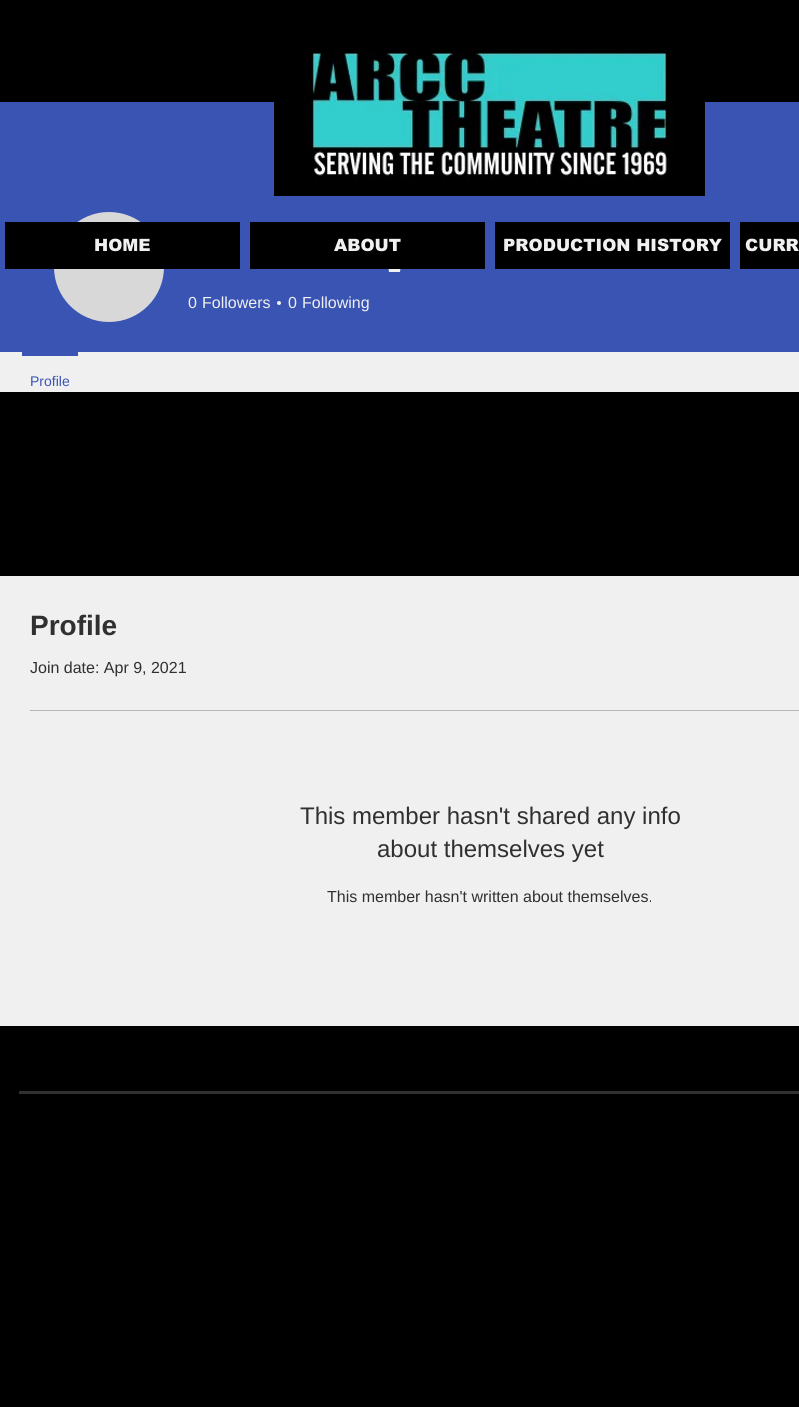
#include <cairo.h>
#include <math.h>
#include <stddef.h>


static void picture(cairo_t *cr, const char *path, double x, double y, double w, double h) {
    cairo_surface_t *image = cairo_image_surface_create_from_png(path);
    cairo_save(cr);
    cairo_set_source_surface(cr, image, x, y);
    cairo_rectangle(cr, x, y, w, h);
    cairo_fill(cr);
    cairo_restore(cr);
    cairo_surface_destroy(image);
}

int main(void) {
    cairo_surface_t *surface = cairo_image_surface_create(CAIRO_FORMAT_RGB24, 799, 1407);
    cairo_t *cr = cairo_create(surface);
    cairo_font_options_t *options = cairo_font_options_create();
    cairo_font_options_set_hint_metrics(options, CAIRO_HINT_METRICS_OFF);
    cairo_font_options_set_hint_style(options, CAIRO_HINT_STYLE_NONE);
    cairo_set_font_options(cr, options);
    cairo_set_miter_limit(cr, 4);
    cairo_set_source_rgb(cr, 0, 0, 0);
    cairo_paint(cr);
    cairo_set_source_rgb(cr, 0.227, 0.329, 0.706);
    cairo_rectangle(cr, 0, 102, 799, 250);
    cairo_fill(cr);
    picture(cr, "img1.png", 274, 46, 431, 150);
    cairo_set_source_rgb(cr, 0.847, 0.847, 0.847);
    cairo_arc(cr, 109, 267, 55, 0, 2 * M_PI);
    cairo_fill(cr);
    cairo_set_source_rgb(cr, 0, 0, 0);
    cairo_rectangle(cr, 5, 222, 235, 47);
    cairo_fill(cr);
    cairo_select_font_face(cr, "arial Black", CAIRO_FONT_SLANT_NORMAL, CAIRO_FONT_WEIGHT_NORMAL);
    cairo_set_font_size(cr, 17);
    cairo_set_source_rgb(cr, 0.941, 0.941, 0.941);
    cairo_move_to(cr, 94, 251);
    cairo_show_text(cr, "HOME");
    cairo_set_source_rgb(cr, 0, 0, 0);
    cairo_rectangle(cr, 250, 222, 235, 47);
    cairo_fill(cr);
    cairo_set_source_rgb(cr, 0.941, 0.941, 0.941);
    cairo_move_to(cr, 334, 251);
    cairo_show_text(cr, "ABOUT");
    cairo_set_source_rgb(cr, 0, 0, 0);
    cairo_rectangle(cr, 495, 222, 235, 47);
    cairo_fill(cr);
    cairo_set_source_rgb(cr, 0.941, 0.941, 0.941);
    cairo_move_to(cr, 503, 251);
    cairo_show_text(cr, "PRODUCTION HISTORY");
    cairo_set_source_rgb(cr, 0, 0, 0);
    cairo_rectangle(cr, 740, 222, 59, 47);
    cairo_fill(cr);
    cairo_set_source_rgb(cr, 0.941, 0.941, 0.941);
    cairo_move_to(cr, 745, 251);
    cairo_show_text(cr, "CURR");
    picture(cr, "img2.png", 388, 269, 13, 3);
    cairo_select_font_face(cr, "Liberation Sans", CAIRO_FONT_SLANT_NORMAL, CAIRO_FONT_WEIGHT_NORMAL);
    cairo_set_font_size(cr, 16);
    cairo_move_to(cr, 188, 308);
    cairo_show_text(cr, "0");
    cairo_move_to(cr, 202, 308);
    cairo_show_text(cr, "Followers");
    cairo_new_path(cr);
    cairo_arc(cr, 279, 303, 2, 0, 2 * M_PI);
    cairo_fill(cr);
    cairo_move_to(cr, 288, 308);
    cairo_show_text(cr, "0");
    cairo_move_to(cr, 302, 308);
    cairo_show_text(cr, "Following");
    cairo_rectangle(cr, 0, 352, 799, 40);
    cairo_fill(cr);
    cairo_set_source_rgb(cr, 0.227, 0.329, 0.706);
    cairo_rectangle(cr, 22, 352, 56, 4);
    cairo_fill(cr);
    cairo_set_font_size(cr, 14);
    cairo_move_to(cr, 30, 386);
    cairo_show_text(cr, "Profile");
    cairo_set_source_rgb(cr, 0.941, 0.941, 0.941);
    cairo_rectangle(cr, 0, 576, 799, 450);
    cairo_fill(cr);
    cairo_select_font_face(cr, "Liberation Sans", CAIRO_FONT_SLANT_NORMAL, CAIRO_FONT_WEIGHT_BOLD);
    cairo_set_font_size(cr, 28);
    cairo_set_source_rgb(cr, 0.188, 0.188, 0.188);
    cairo_move_to(cr, 30, 635);
    cairo_show_text(cr, "Profile");
    cairo_select_font_face(cr, "Liberation Sans", CAIRO_FONT_SLANT_NORMAL, CAIRO_FONT_WEIGHT_NORMAL);
    cairo_set_font_size(cr, 16);
    cairo_move_to(cr, 30, 673);
    cairo_show_text(cr, "Join date: Apr 9, 2021");
    cairo_set_source_rgb(cr, 0.714, 0.714, 0.714);
    cairo_rectangle(cr, 30, 710, 769, 1);
    cairo_fill(cr);
    cairo_set_font_size(cr, 24);
    cairo_set_source_rgb(cr, 0.188, 0.188, 0.188);
    cairo_move_to(cr, 300, 824);
    cairo_show_text(cr, "This member hasn't shared any info");
    cairo_move_to(cr, 377, 857);
    cairo_show_text(cr, "about themselves yet");
    cairo_set_font_size(cr, 16);
    cairo_move_to(cr, 327, 902);
    cairo_show_text(cr, "This member hasn't written about themselves.");
    cairo_rectangle(cr, 19, 1091, 780, 3);
    cairo_fill(cr);
    cairo_surface_write_to_png(surface, "page.png");
    cairo_font_options_destroy(options);
    cairo_destroy(cr);
    cairo_surface_destroy(surface);
    return 0;
}
